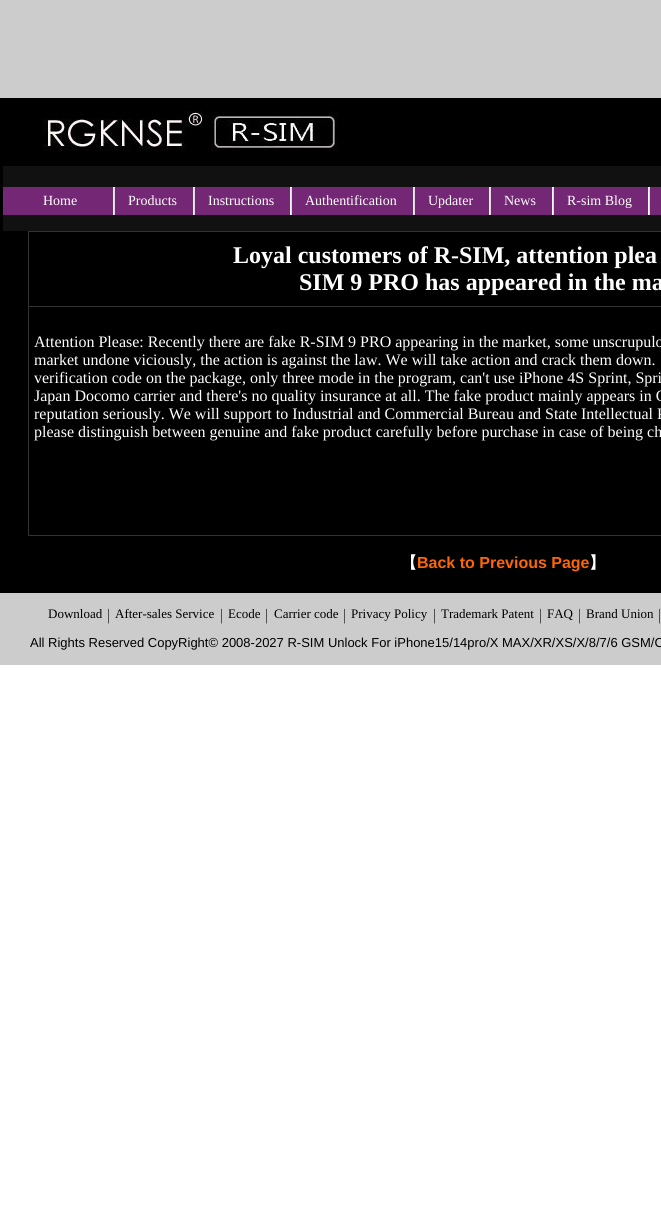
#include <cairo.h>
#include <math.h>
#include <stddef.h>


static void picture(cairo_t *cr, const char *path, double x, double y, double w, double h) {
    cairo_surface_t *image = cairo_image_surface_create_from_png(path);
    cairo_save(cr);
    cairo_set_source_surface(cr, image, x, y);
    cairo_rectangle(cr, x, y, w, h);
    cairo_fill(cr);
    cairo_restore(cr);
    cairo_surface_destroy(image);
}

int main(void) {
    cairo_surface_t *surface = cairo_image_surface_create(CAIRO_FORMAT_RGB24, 661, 1211);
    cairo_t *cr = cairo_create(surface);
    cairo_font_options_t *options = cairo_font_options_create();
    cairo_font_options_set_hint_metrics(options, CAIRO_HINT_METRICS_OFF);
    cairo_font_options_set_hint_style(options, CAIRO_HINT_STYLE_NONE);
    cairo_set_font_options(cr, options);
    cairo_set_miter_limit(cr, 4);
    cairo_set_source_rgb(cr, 1, 1, 1);
    cairo_paint(cr);
    cairo_set_source_rgb(cr, 0.8, 0.8, 0.8);
    cairo_rectangle(cr, 0, 0, 661, 665);
    cairo_fill(cr);
    cairo_set_source_rgb(cr, 0, 0, 0);
    cairo_rectangle(cr, 0, 98, 661, 495);
    cairo_fill(cr);
    picture(cr, "img1.png", 43, 111, 296, 40);
    cairo_set_source_rgb(cr, 0.067, 0.067, 0.067);
    cairo_rectangle(cr, 3, 166, 658, 65);
    cairo_fill(cr);
    cairo_set_source_rgb(cr, 0.455, 0.153, 0.459);
    cairo_rectangle(cr, 3, 187, 658, 28);
    cairo_fill(cr);
    cairo_select_font_face(cr, "Liberation Serif", CAIRO_FONT_SLANT_NORMAL, CAIRO_FONT_WEIGHT_NORMAL);
    cairo_set_font_size(cr, 14);
    cairo_set_source_rgb(cr, 1, 1, 1);
    cairo_move_to(cr, 43, 205);
    cairo_show_text(cr, "Home");
    picture(cr, "img2.png", 113, 187, 2, 28);
    cairo_move_to(cr, 128, 205);
    cairo_show_text(cr, "Products");
    picture(cr, "img2.png", 193, 187, 2, 28);
    cairo_move_to(cr, 208, 205);
    cairo_show_text(cr, "Instructions");
    picture(cr, "img2.png", 290, 187, 2, 28);
    cairo_move_to(cr, 305, 205);
    cairo_show_text(cr, "Authentification");
    picture(cr, "img2.png", 413, 187, 2, 28);
    cairo_move_to(cr, 428, 205);
    cairo_show_text(cr, "Updater");
    picture(cr, "img2.png", 489, 187, 2, 28);
    cairo_move_to(cr, 504, 205);
    cairo_show_text(cr, "News");
    picture(cr, "img2.png", 552, 187, 2, 28);
    cairo_move_to(cr, 567, 205);
    cairo_show_text(cr, "R-sim Blog");
    picture(cr, "img2.png", 648, 187, 2, 28);
    cairo_set_source_rgb(cr, 0.2, 0.2, 0.2);
    cairo_rectangle(cr, 28, 231, 633, 305);
    cairo_fill(cr);
    cairo_set_source_rgb(cr, 0, 0, 0);
    cairo_rectangle(cr, 29, 232, 632, 74);
    cairo_fill(cr);
    cairo_select_font_face(cr, "Liberation Serif", CAIRO_FONT_SLANT_NORMAL, CAIRO_FONT_WEIGHT_BOLD);
    cairo_set_font_size(cr, 24);
    cairo_set_source_rgb(cr, 1, 1, 1);
    cairo_move_to(cr, 233, 263);
    cairo_show_text(cr, "Loyal customers of R-SIM, attention plea");
    cairo_move_to(cr, 299, 290);
    cairo_show_text(cr, "SIM 9 PRO has appeared in the ma");
    cairo_set_source_rgb(cr, 0, 0, 0);
    cairo_rectangle(cr, 29, 307, 632, 228);
    cairo_fill(cr);
    cairo_select_font_face(cr, "Liberation Serif", CAIRO_FONT_SLANT_NORMAL, CAIRO_FONT_WEIGHT_NORMAL);
    cairo_set_font_size(cr, 16);
    cairo_set_source_rgb(cr, 1, 1, 1);
    cairo_move_to(cr, 34, 347);
    cairo_show_text(cr, "Attention Please: Recently there are fake R-SIM 9 PRO appearing in the market, some unscrupulo");
    cairo_move_to(cr, 34, 365);
    cairo_show_text(cr, "market undone viciously, the action is against the law. We will take action and crack them down.");
    cairo_move_to(cr, 34, 383);
    cairo_show_text(cr, "verification code on the package, only three mode in the program, can't use iPhone 4S Sprint, Spri");
    cairo_move_to(cr, 34, 401);
    cairo_show_text(cr, "Japan Docomo carrier and there's no quality insurance at all. The fake product mainly appears in G");
    cairo_move_to(cr, 34, 419);
    cairo_show_text(cr, "reputation seriously. We will support to Industrial and Commercial Bureau and State Intellectual P");
    cairo_move_to(cr, 34, 437);
    cairo_show_text(cr, "please distinguish between genuine and fake product carefully before purchase in case of being ch");
    cairo_select_font_face(cr, "WenQuanYi Zen Hei", CAIRO_FONT_SLANT_NORMAL, CAIRO_FONT_WEIGHT_BOLD);
    cairo_move_to(cr, 401, 568);
    cairo_show_text(cr, "【");
    cairo_select_font_face(cr, "Liberation Sans", CAIRO_FONT_SLANT_NORMAL, CAIRO_FONT_WEIGHT_BOLD);
    cairo_set_source_rgb(cr, 1, 0.4, 0);
    cairo_move_to(cr, 417, 568);
    cairo_show_text(cr, "Back to Previous Page");
    cairo_select_font_face(cr, "WenQuanYi Zen Hei", CAIRO_FONT_SLANT_NORMAL, CAIRO_FONT_WEIGHT_BOLD);
    cairo_set_source_rgb(cr, 1, 1, 1);
    cairo_move_to(cr, 589, 568);
    cairo_show_text(cr, "】");
    cairo_select_font_face(cr, "Liberation Serif", CAIRO_FONT_SLANT_NORMAL, CAIRO_FONT_WEIGHT_NORMAL);
    cairo_set_font_size(cr, 13);
    cairo_set_source_rgb(cr, 0, 0, 0);
    cairo_move_to(cr, 48, 618);
    cairo_show_text(cr, "Download");
    cairo_set_font_size(cr, 16);
    cairo_set_source_rgb(cr, 0.2, 0.2, 0.2);
    cairo_move_to(cr, 107, 620);
    cairo_show_text(cr, "|");
    cairo_set_font_size(cr, 13);
    cairo_set_source_rgb(cr, 0, 0, 0);
    cairo_move_to(cr, 115, 618);
    cairo_show_text(cr, "After-sales Service");
    cairo_set_font_size(cr, 16);
    cairo_set_source_rgb(cr, 0.2, 0.2, 0.2);
    cairo_move_to(cr, 220, 620);
    cairo_show_text(cr, "|");
    cairo_set_font_size(cr, 13);
    cairo_set_source_rgb(cr, 0, 0, 0);
    cairo_move_to(cr, 228, 618);
    cairo_show_text(cr, "Ecode");
    cairo_set_font_size(cr, 16);
    cairo_set_source_rgb(cr, 0.2, 0.2, 0.2);
    cairo_move_to(cr, 265, 620);
    cairo_show_text(cr, "|");
    cairo_set_font_size(cr, 13);
    cairo_set_source_rgb(cr, 0, 0, 0);
    cairo_move_to(cr, 274, 618);
    cairo_show_text(cr, "Carrier code");
    cairo_set_font_size(cr, 16);
    cairo_set_source_rgb(cr, 0.2, 0.2, 0.2);
    cairo_move_to(cr, 343, 620);
    cairo_show_text(cr, "|");
    cairo_set_font_size(cr, 13);
    cairo_set_source_rgb(cr, 0, 0, 0);
    cairo_move_to(cr, 351, 618);
    cairo_show_text(cr, "Privacy Policy");
    cairo_set_font_size(cr, 16);
    cairo_set_source_rgb(cr, 0.2, 0.2, 0.2);
    cairo_move_to(cr, 433, 620);
    cairo_show_text(cr, "|");
    cairo_set_font_size(cr, 13);
    cairo_set_source_rgb(cr, 0, 0, 0);
    cairo_move_to(cr, 441, 618);
    cairo_show_text(cr, "Trademark Patent");
    cairo_set_font_size(cr, 16);
    cairo_set_source_rgb(cr, 0.2, 0.2, 0.2);
    cairo_move_to(cr, 539, 620);
    cairo_show_text(cr, "|");
    cairo_set_font_size(cr, 13);
    cairo_set_source_rgb(cr, 0, 0, 0);
    cairo_move_to(cr, 547, 618);
    cairo_show_text(cr, "FAQ");
    cairo_set_font_size(cr, 16);
    cairo_set_source_rgb(cr, 0.2, 0.2, 0.2);
    cairo_move_to(cr, 578, 620);
    cairo_show_text(cr, "|");
    cairo_set_font_size(cr, 13);
    cairo_set_source_rgb(cr, 0, 0, 0);
    cairo_move_to(cr, 586, 618);
    cairo_show_text(cr, "Brand Union");
    cairo_set_font_size(cr, 16);
    cairo_set_source_rgb(cr, 0.2, 0.2, 0.2);
    cairo_move_to(cr, 658, 620);
    cairo_show_text(cr, "|");
    cairo_select_font_face(cr, "Liberation Sans", CAIRO_FONT_SLANT_NORMAL, CAIRO_FONT_WEIGHT_NORMAL);
    cairo_set_font_size(cr, 13);
    cairo_set_source_rgb(cr, 0, 0, 0);
    cairo_move_to(cr, 30, 647);
    cairo_show_text(cr, "All Rights Reserved CopyRight© 2008-2027 R-SIM Unlock For iPhone15/14pro/X MAX/XR/XS/X/8/7/6 GSM/C");
    cairo_surface_write_to_png(surface, "page.png");
    cairo_font_options_destroy(options);
    cairo_destroy(cr);
    cairo_surface_destroy(surface);
    return 0;
}
